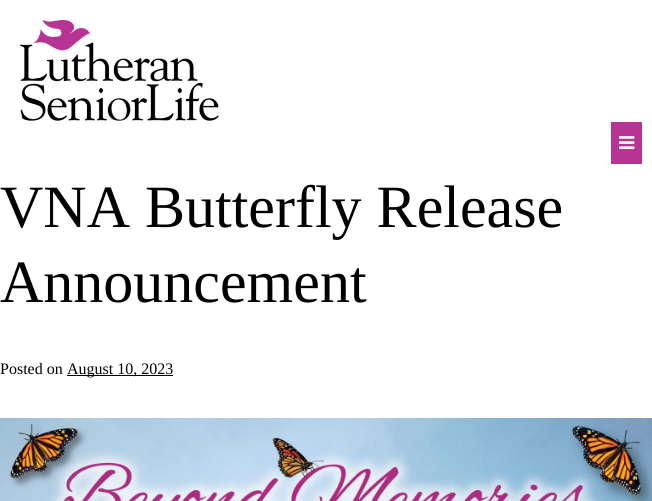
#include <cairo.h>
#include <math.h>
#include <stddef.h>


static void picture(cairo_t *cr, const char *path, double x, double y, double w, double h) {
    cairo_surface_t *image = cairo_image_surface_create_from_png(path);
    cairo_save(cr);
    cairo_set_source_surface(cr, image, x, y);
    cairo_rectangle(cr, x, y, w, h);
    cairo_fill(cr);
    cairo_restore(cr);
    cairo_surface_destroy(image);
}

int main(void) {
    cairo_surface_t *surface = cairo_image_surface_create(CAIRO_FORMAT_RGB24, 652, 501);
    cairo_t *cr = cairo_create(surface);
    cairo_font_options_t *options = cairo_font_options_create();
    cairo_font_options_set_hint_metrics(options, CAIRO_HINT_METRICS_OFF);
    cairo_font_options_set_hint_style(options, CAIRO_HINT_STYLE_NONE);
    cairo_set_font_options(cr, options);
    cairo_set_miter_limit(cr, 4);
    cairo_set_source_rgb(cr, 1, 1, 1);
    cairo_paint(cr);
    picture(cr, "img1.png", 20, 20, 199, 101);
    cairo_set_source_rgb(cr, 0.722, 0.204, 0.58);
    cairo_rectangle(cr, 611, 122, 31, 42);
    cairo_fill(cr);
    picture(cr, "img2.png", 619, 136, 16, 13);
    cairo_select_font_face(cr, "Liberation Serif", CAIRO_FONT_SLANT_NORMAL, CAIRO_FONT_WEIGHT_NORMAL);
    cairo_set_font_size(cr, 60);
    cairo_set_source_rgb(cr, 0, 0, 0);
    cairo_move_to(cr, 0, 227);
    cairo_show_text(cr, "VNA Butterfly Release");
    cairo_move_to(cr, 0, 302);
    cairo_show_text(cr, "Announcement");
    cairo_set_font_size(cr, 16);
    cairo_move_to(cr, 0, 374);
    cairo_show_text(cr, "Posted on");
    cairo_rectangle(cr, 67, 375, 106, 1);
    cairo_fill(cr);
    cairo_move_to(cr, 67, 374);
    cairo_show_text(cr, "August 10, 2023");
    picture(cr, "img3.png", 0, 418, 652, 83);
    cairo_surface_write_to_png(surface, "page.png");
    cairo_font_options_destroy(options);
    cairo_destroy(cr);
    cairo_surface_destroy(surface);
    return 0;
}
